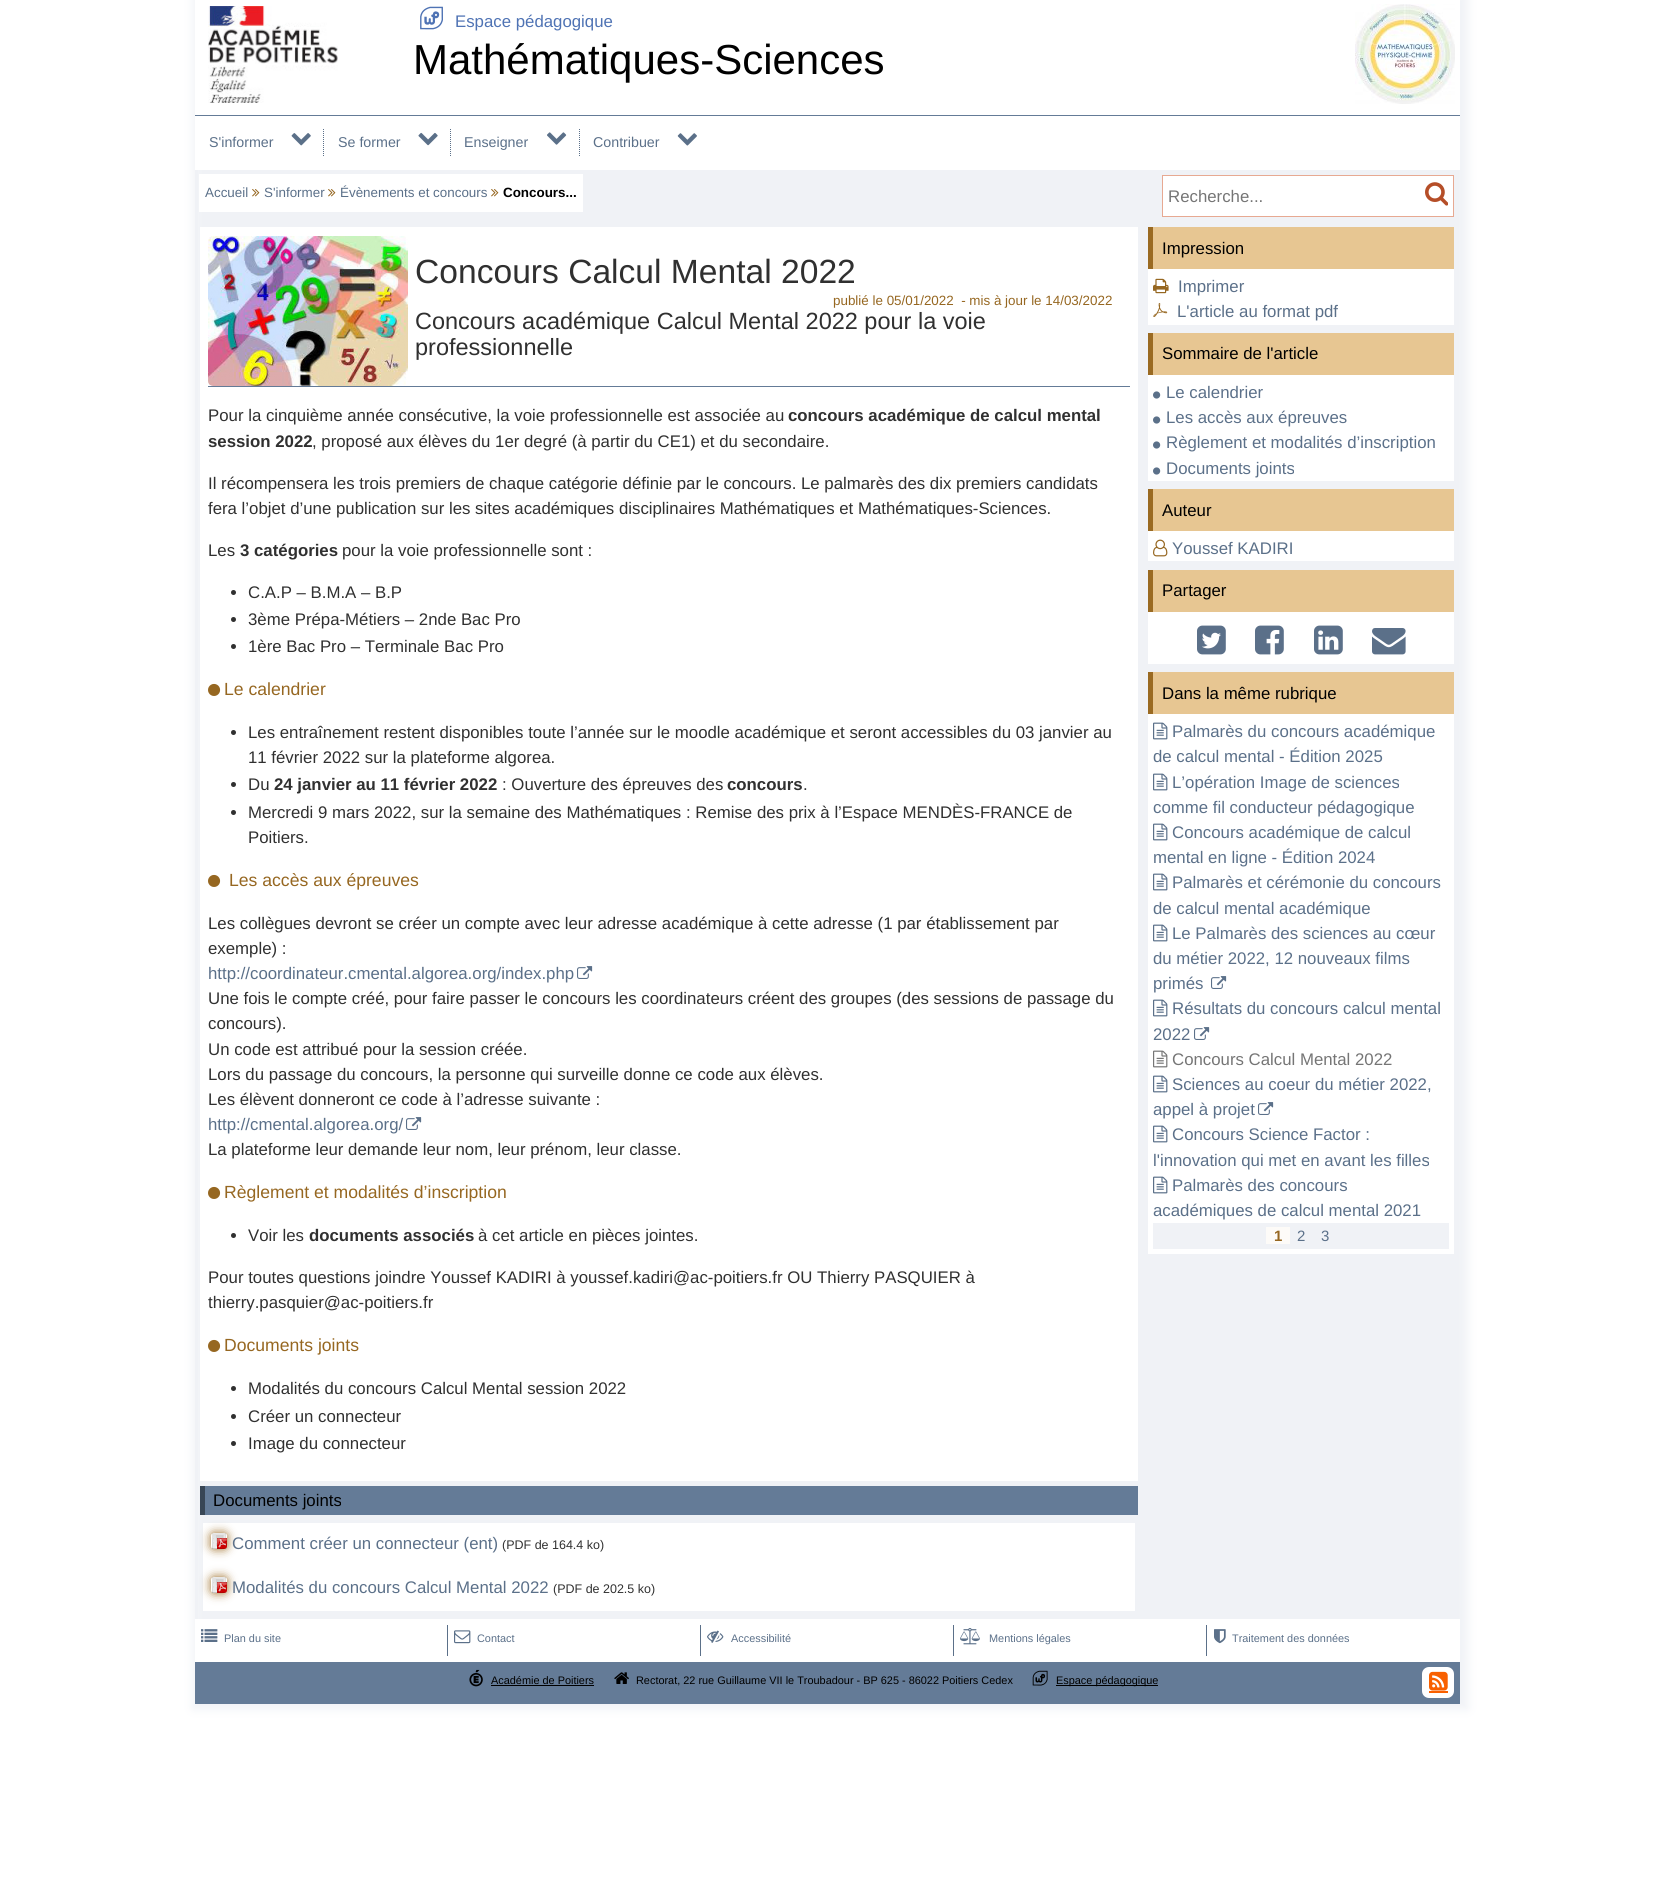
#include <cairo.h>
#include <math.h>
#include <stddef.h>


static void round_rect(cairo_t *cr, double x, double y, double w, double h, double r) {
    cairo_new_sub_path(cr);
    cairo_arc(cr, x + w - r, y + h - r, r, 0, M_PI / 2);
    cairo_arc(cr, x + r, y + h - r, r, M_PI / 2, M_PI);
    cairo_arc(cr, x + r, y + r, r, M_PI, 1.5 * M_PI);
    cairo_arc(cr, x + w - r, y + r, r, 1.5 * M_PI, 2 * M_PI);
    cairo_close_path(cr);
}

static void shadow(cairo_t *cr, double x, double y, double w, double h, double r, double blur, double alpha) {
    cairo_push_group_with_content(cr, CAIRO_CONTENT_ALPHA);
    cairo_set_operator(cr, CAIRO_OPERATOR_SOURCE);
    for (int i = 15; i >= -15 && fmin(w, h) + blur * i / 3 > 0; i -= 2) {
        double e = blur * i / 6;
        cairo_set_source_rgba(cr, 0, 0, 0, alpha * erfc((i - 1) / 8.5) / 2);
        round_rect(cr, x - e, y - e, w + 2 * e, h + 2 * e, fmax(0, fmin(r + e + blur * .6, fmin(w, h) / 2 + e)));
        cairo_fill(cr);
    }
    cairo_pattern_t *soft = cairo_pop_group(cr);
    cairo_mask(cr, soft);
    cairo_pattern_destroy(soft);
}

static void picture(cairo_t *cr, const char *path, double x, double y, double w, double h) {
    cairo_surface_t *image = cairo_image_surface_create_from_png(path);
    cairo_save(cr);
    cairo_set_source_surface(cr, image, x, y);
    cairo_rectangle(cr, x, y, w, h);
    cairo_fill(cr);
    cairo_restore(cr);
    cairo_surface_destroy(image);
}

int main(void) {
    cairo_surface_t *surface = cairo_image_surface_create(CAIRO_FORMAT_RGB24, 1654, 1889);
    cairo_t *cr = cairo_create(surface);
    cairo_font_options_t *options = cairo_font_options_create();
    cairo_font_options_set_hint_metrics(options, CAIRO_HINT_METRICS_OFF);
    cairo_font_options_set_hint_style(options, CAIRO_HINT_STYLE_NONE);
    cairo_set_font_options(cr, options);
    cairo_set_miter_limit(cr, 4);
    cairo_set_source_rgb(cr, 1, 1, 1);
    cairo_paint(cr);
    cairo_set_source_rgb(cr, 0.941, 0.949, 0.961);
    shadow(cr, 193, -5, 1275, 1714, 0, 5, 1);
    cairo_set_source_rgb(cr, 0.941, 0.949, 0.961);
    cairo_rectangle(cr, 195, 170, 3, 1449);
    cairo_fill(cr);
    cairo_set_source_rgb(cr, 1, 1, 1);
    cairo_rectangle(cr, 195, 0, 1265, 115);
    cairo_fill(cr);
    picture(cr, "img1.png", 208, 6, 130, 97);
    picture(cr, "img2.png", 420, 6, 23, 24);
    cairo_select_font_face(cr, "Liberation Sans", CAIRO_FONT_SLANT_NORMAL, CAIRO_FONT_WEIGHT_NORMAL);
    cairo_set_font_size(cr, 16.8);
    cairo_set_source_rgb(cr, 0.31, 0.451, 0.706);
    cairo_move_to(cr, 455, 27);
    cairo_show_text(cr, "Espace pédagogique");
    cairo_set_font_size(cr, 42);
    cairo_set_source_rgb(cr, 0, 0, 0);
    cairo_move_to(cr, 413, 74);
    cairo_show_text(cr, "Mathématiques-Sciences");
    picture(cr, "img3.png", 1355, 4, 100, 100);
    cairo_set_source_rgb(cr, 1, 1, 1);
    cairo_rectangle(cr, 195, 116, 1265, 54);
    cairo_fill(cr);
    cairo_set_source_rgb(cr, 0.392, 0.482, 0.592);
    cairo_rectangle(cr, 195, 115, 1265, 1);
    cairo_fill(cr);
    cairo_set_font_size(cr, 14.25);
    cairo_set_source_rgb(cr, 0.357, 0.439, 0.537);
    cairo_move_to(cr, 209, 147);
    cairo_show_text(cr, "S'informer");
    picture(cr, "img4.png", 291, 133, 20, 13);
    cairo_new_path(cr);
    cairo_move_to(cr, 323.5, 129);
    cairo_line_to(cr, 323.5, 156);
    cairo_set_line_width(cr, 1);
    cairo_set_dash(cr, (double[]){1, 1}, 2, 0);
    cairo_stroke(cr);
    cairo_move_to(cr, 338, 147);
    cairo_show_text(cr, "Se former");
    picture(cr, "img5.png", 418, 132, 20, 14);
    cairo_new_path(cr);
    cairo_move_to(cr, 450.5, 129);
    cairo_line_to(cr, 450.5, 156);
    cairo_stroke(cr);
    cairo_move_to(cr, 464, 147);
    cairo_show_text(cr, "Enseigner");
    picture(cr, "img6.png", 547, 132, 20, 13);
    cairo_new_path(cr);
    cairo_move_to(cr, 579.5, 129);
    cairo_line_to(cr, 579.5, 156);
    cairo_stroke(cr);
    cairo_move_to(cr, 593, 147);
    cairo_show_text(cr, "Contribuer");
    picture(cr, "img7.png", 677, 133, 20, 13);
    cairo_set_source_rgb(cr, 1, 1, 1);
    cairo_rectangle(cr, 199, 174, 384, 38);
    cairo_fill(cr);
    cairo_set_font_size(cr, 13.4);
    cairo_set_source_rgb(cr, 0.357, 0.439, 0.537);
    cairo_move_to(cr, 205, 197);
    cairo_show_text(cr, "Accueil");
    picture(cr, "img8.png", 252, 189, 8, 8);
    cairo_move_to(cr, 264, 197);
    cairo_show_text(cr, "S'informer");
    picture(cr, "img8.png", 328, 189, 8, 8);
    cairo_move_to(cr, 340, 197);
    cairo_show_text(cr, "Évènements et concours");
    picture(cr, "img8.png", 491, 189, 8, 8);
    cairo_select_font_face(cr, "Liberation Sans", CAIRO_FONT_SLANT_NORMAL, CAIRO_FONT_WEIGHT_BOLD);
    cairo_set_source_rgb(cr, 0, 0, 0);
    cairo_move_to(cr, 503, 197);
    cairo_show_text(cr, "Concours...");
    cairo_set_source_rgb(cr, 1, 1, 1);
    cairo_rectangle(cr, 1162.5, 175.5, 291, 41);
    cairo_fill_preserve(cr);
    cairo_set_source_rgb(cr, 0.906, 0.663, 0.573);
    cairo_set_dash(cr, NULL, 0, 0);
    cairo_stroke(cr);
    cairo_select_font_face(cr, "Liberation Sans", CAIRO_FONT_SLANT_NORMAL, CAIRO_FONT_WEIGHT_NORMAL);
    cairo_set_font_size(cr, 16.8);
    cairo_set_source_rgb(cr, 0.459, 0.459, 0.459);
    cairo_move_to(cr, 1168, 202);
    cairo_show_text(cr, "Recherche...");
    picture(cr, "img9.png", 1425, 182, 23, 24);
    cairo_set_source_rgb(cr, 1, 1, 1);
    cairo_rectangle(cr, 200, 227, 938, 1254);
    cairo_fill(cr);
    picture(cr, "img10.png", 208, 236, 200, 150);
    cairo_set_font_size(cr, 33.6);
    cairo_set_source_rgb(cr, 0.188, 0.188, 0.188);
    cairo_move_to(cr, 415, 283);
    cairo_show_text(cr, "Concours Calcul Mental 2022");
    cairo_set_font_size(cr, 13.4);
    cairo_set_source_rgb(cr, 0.588, 0.404, 0.129);
    cairo_move_to(cr, 833, 305);
    cairo_show_text(cr, "publié le 05/01/2022  - mis à jour le 14/03/2022");
    cairo_set_font_size(cr, 23.5);
    cairo_set_source_rgb(cr, 0.188, 0.188, 0.188);
    cairo_move_to(cr, 415, 329);
    cairo_show_text(cr, "Concours académique Calcul Mental 2022 pour la voie");
    cairo_move_to(cr, 415, 355);
    cairo_show_text(cr, "professionnelle");
    cairo_set_source_rgb(cr, 0.392, 0.482, 0.592);
    cairo_rectangle(cr, 208, 386, 922, 1);
    cairo_fill(cr);
    cairo_set_font_size(cr, 16.8);
    cairo_set_source_rgb(cr, 0.188, 0.188, 0.188);
    cairo_move_to(cr, 208, 421);
    cairo_show_text(cr, "Pour la cinquième année consécutive, la voie professionnelle est associée au");
    cairo_select_font_face(cr, "Liberation Sans", CAIRO_FONT_SLANT_NORMAL, CAIRO_FONT_WEIGHT_BOLD);
    cairo_move_to(cr, 788, 421);
    cairo_show_text(cr, "concours académique de calcul mental");
    cairo_move_to(cr, 208, 447);
    cairo_show_text(cr, "session 2022");
    cairo_select_font_face(cr, "Liberation Sans", CAIRO_FONT_SLANT_NORMAL, CAIRO_FONT_WEIGHT_NORMAL);
    cairo_move_to(cr, 312, 447);
    cairo_show_text(cr, ", proposé aux élèves du 1er degré (à partir du CE1) et du secondaire.");
    cairo_move_to(cr, 208, 489);
    cairo_show_text(cr, "Il récompensera les trois premiers de chaque catégorie définie par le concours. Le palmarès des dix premiers candidats");
    cairo_move_to(cr, 208, 514);
    cairo_show_text(cr, "fera l’objet d’une publication sur les sites académiques disciplinaires Mathématiques et Mathématiques-Sciences.");
    cairo_move_to(cr, 208, 556);
    cairo_show_text(cr, "Les");
    cairo_select_font_face(cr, "Liberation Sans", CAIRO_FONT_SLANT_NORMAL, CAIRO_FONT_WEIGHT_BOLD);
    cairo_move_to(cr, 240, 556);
    cairo_show_text(cr, "3 catégories");
    cairo_select_font_face(cr, "Liberation Sans", CAIRO_FONT_SLANT_NORMAL, CAIRO_FONT_WEIGHT_NORMAL);
    cairo_move_to(cr, 342, 556);
    cairo_show_text(cr, "pour la voie professionnelle sont :");
    cairo_new_path(cr);
    cairo_arc(cr, 233.5, 592.5, 2.5, 0, 2 * M_PI);
    cairo_fill(cr);
    cairo_move_to(cr, 248, 598);
    cairo_show_text(cr, "C.A.P – B.M.A – B.P");
    cairo_new_path(cr);
    cairo_arc(cr, 233.5, 619.5, 2.5, 0, 2 * M_PI);
    cairo_fill(cr);
    cairo_move_to(cr, 248, 625);
    cairo_show_text(cr, "3ème Prépa-Métiers – 2nde Bac Pro");
    cairo_new_path(cr);
    cairo_arc(cr, 233.5, 646.5, 2.5, 0, 2 * M_PI);
    cairo_fill(cr);
    cairo_move_to(cr, 248, 652);
    cairo_show_text(cr, "1ère Bac Pro – Terminale Bac Pro");
    picture(cr, "img11.png", 208, 683, 13, 13);
    cairo_set_font_size(cr, 17.6);
    cairo_set_source_rgb(cr, 0.588, 0.404, 0.129);
    cairo_move_to(cr, 224, 695);
    cairo_show_text(cr, "Le calendrier");
    cairo_set_source_rgb(cr, 0.188, 0.188, 0.188);
    cairo_new_path(cr);
    cairo_arc(cr, 233.5, 732.5, 2.5, 0, 2 * M_PI);
    cairo_fill(cr);
    cairo_set_font_size(cr, 16.8);
    cairo_move_to(cr, 248, 738);
    cairo_show_text(cr, "Les entraînement restent disponibles toute l’année sur le moodle académique et seront accessibles du 03 janvier au");
    cairo_move_to(cr, 248, 763);
    cairo_show_text(cr, "11 février 2022 sur la plateforme algorea.");
    cairo_new_path(cr);
    cairo_arc(cr, 233.5, 784.5, 2.5, 0, 2 * M_PI);
    cairo_fill(cr);
    cairo_move_to(cr, 248, 790);
    cairo_show_text(cr, "Du");
    cairo_select_font_face(cr, "Liberation Sans", CAIRO_FONT_SLANT_NORMAL, CAIRO_FONT_WEIGHT_BOLD);
    cairo_move_to(cr, 274, 790);
    cairo_show_text(cr, "24 janvier au 11 février 2022");
    cairo_select_font_face(cr, "Liberation Sans", CAIRO_FONT_SLANT_NORMAL, CAIRO_FONT_WEIGHT_NORMAL);
    cairo_move_to(cr, 502, 790);
    cairo_show_text(cr, ": Ouverture des épreuves des");
    cairo_select_font_face(cr, "Liberation Sans", CAIRO_FONT_SLANT_NORMAL, CAIRO_FONT_WEIGHT_BOLD);
    cairo_move_to(cr, 727, 790);
    cairo_show_text(cr, "concours");
    cairo_select_font_face(cr, "Liberation Sans", CAIRO_FONT_SLANT_NORMAL, CAIRO_FONT_WEIGHT_NORMAL);
    cairo_move_to(cr, 803, 790);
    cairo_show_text(cr, ".");
    cairo_new_path(cr);
    cairo_arc(cr, 233.5, 812.5, 2.5, 0, 2 * M_PI);
    cairo_fill(cr);
    cairo_move_to(cr, 248, 818);
    cairo_show_text(cr, "Mercredi 9 mars 2022, sur la semaine des Mathématiques : Remise des prix à l’Espace MENDÈS-FRANCE de");
    cairo_move_to(cr, 248, 843);
    cairo_show_text(cr, "Poitiers.");
    picture(cr, "img11.png", 208, 874, 13, 13);
    cairo_set_font_size(cr, 17.6);
    cairo_set_source_rgb(cr, 0.588, 0.404, 0.129);
    cairo_move_to(cr, 229, 886);
    cairo_show_text(cr, "Les accès aux épreuves");
    cairo_set_font_size(cr, 16.8);
    cairo_set_source_rgb(cr, 0.188, 0.188, 0.188);
    cairo_move_to(cr, 208, 929);
    cairo_show_text(cr, "Les collègues devront se créer un compte avec leur adresse académique à cette adresse (1 par établissement par");
    cairo_move_to(cr, 208, 954);
    cairo_show_text(cr, "exemple) :");
    cairo_set_source_rgb(cr, 0.357, 0.439, 0.537);
    cairo_move_to(cr, 208, 979);
    cairo_show_text(cr, "http://coordinateur.cmental.algorea.org/index.php");
    picture(cr, "img12.png", 577, 966, 16, 13);
    cairo_set_source_rgb(cr, 0.188, 0.188, 0.188);
    cairo_move_to(cr, 208, 1004);
    cairo_show_text(cr, "Une fois le compte créé, pour faire passer le concours les coordinateurs créent des groupes (des sessions de passage du");
    cairo_move_to(cr, 208, 1029);
    cairo_show_text(cr, "concours).");
    cairo_move_to(cr, 208, 1055);
    cairo_show_text(cr, "Un code est attribué pour la session créée.");
    cairo_move_to(cr, 208, 1080);
    cairo_show_text(cr, "Lors du passage du concours, la personne qui surveille donne ce code aux élèves.");
    cairo_move_to(cr, 208, 1105);
    cairo_show_text(cr, "Les élèvent donneront ce code à l’adresse suivante :");
    cairo_set_source_rgb(cr, 0.357, 0.439, 0.537);
    cairo_move_to(cr, 208, 1130);
    cairo_show_text(cr, "http://cmental.algorea.org/");
    picture(cr, "img12.png", 406, 1117, 16, 13);
    cairo_set_source_rgb(cr, 0.188, 0.188, 0.188);
    cairo_move_to(cr, 208, 1155);
    cairo_show_text(cr, "La plateforme leur demande leur nom, leur prénom, leur classe.");
    picture(cr, "img11.png", 208, 1186, 13, 13);
    cairo_set_font_size(cr, 17.6);
    cairo_set_source_rgb(cr, 0.588, 0.404, 0.129);
    cairo_move_to(cr, 224, 1198);
    cairo_show_text(cr, "Règlement et modalités d’inscription");
    cairo_set_source_rgb(cr, 0.188, 0.188, 0.188);
    cairo_new_path(cr);
    cairo_arc(cr, 233.5, 1235.5, 2.5, 0, 2 * M_PI);
    cairo_fill(cr);
    cairo_set_font_size(cr, 16.8);
    cairo_move_to(cr, 248, 1241);
    cairo_show_text(cr, "Voir les");
    cairo_select_font_face(cr, "Liberation Sans", CAIRO_FONT_SLANT_NORMAL, CAIRO_FONT_WEIGHT_BOLD);
    cairo_move_to(cr, 309, 1241);
    cairo_show_text(cr, "documents associés");
    cairo_select_font_face(cr, "Liberation Sans", CAIRO_FONT_SLANT_NORMAL, CAIRO_FONT_WEIGHT_NORMAL);
    cairo_move_to(cr, 478, 1241);
    cairo_show_text(cr, "à cet article en pièces jointes.");
    cairo_move_to(cr, 208, 1283);
    cairo_show_text(cr, "Pour toutes questions joindre Youssef KADIRI à youssef.kadiri@ac-poitiers.fr OU Thierry PASQUIER à");
    cairo_move_to(cr, 208, 1308);
    cairo_show_text(cr, "thierry.pasquier@ac-poitiers.fr");
    picture(cr, "img11.png", 208, 1339, 13, 13);
    cairo_set_font_size(cr, 17.6);
    cairo_set_source_rgb(cr, 0.588, 0.404, 0.129);
    cairo_move_to(cr, 224, 1351);
    cairo_show_text(cr, "Documents joints");
    cairo_set_source_rgb(cr, 0.188, 0.188, 0.188);
    cairo_new_path(cr);
    cairo_arc(cr, 233.5, 1388.5, 2.5, 0, 2 * M_PI);
    cairo_fill(cr);
    cairo_set_font_size(cr, 16.8);
    cairo_move_to(cr, 248, 1394);
    cairo_show_text(cr, "Modalités du concours Calcul Mental session 2022");
    cairo_new_path(cr);
    cairo_arc(cr, 233.5, 1416.5, 2.5, 0, 2 * M_PI);
    cairo_fill(cr);
    cairo_move_to(cr, 248, 1422);
    cairo_show_text(cr, "Créer un connecteur");
    cairo_new_path(cr);
    cairo_arc(cr, 233.5, 1443.5, 2.5, 0, 2 * M_PI);
    cairo_fill(cr);
    cairo_move_to(cr, 248, 1449);
    cairo_show_text(cr, "Image du connecteur");
    cairo_set_source_rgb(cr, 0.392, 0.482, 0.592);
    cairo_rectangle(cr, 205, 1486, 933, 29);
    cairo_fill(cr);
    cairo_set_source_rgb(cr, 0.22, 0.275, 0.333);
    cairo_rectangle(cr, 200, 1486, 5, 29);
    cairo_fill(cr);
    cairo_set_source_rgb(cr, 0, 0, 0);
    cairo_move_to(cr, 213, 1506);
    cairo_show_text(cr, "Documents joints");
    cairo_set_source_rgb(cr, 1, 1, 1);
    cairo_rectangle(cr, 203, 1523, 932, 88);
    cairo_fill(cr);
    cairo_set_source_rgb(cr, 0.604, 0.416, 0.133);
    shadow(cr, 211, 1533, 16, 16, 3, 5, 1);
    picture(cr, "img13.png", 211, 1533, 16, 16);
    cairo_set_source_rgb(cr, 0.357, 0.439, 0.537);
    cairo_move_to(cr, 232, 1549);
    cairo_show_text(cr, "Comment créer un connecteur (ent)");
    cairo_set_font_size(cr, 12.5);
    cairo_set_source_rgb(cr, 0.188, 0.188, 0.188);
    cairo_move_to(cr, 502, 1549);
    cairo_show_text(cr, "(PDF de 164.4 ko)");
    cairo_set_source_rgb(cr, 0.604, 0.416, 0.133);
    shadow(cr, 211, 1577, 16, 16, 3, 5, 1);
    picture(cr, "img13.png", 211, 1577, 16, 16);
    cairo_set_font_size(cr, 16.8);
    cairo_set_source_rgb(cr, 0.357, 0.439, 0.537);
    cairo_move_to(cr, 232, 1593);
    cairo_show_text(cr, "Modalités du concours Calcul Mental 2022");
    cairo_set_font_size(cr, 12.5);
    cairo_set_source_rgb(cr, 0.188, 0.188, 0.188);
    cairo_move_to(cr, 553, 1593);
    cairo_show_text(cr, "(PDF de 202.5 ko)");
    cairo_set_source_rgb(cr, 1, 1, 1);
    cairo_rectangle(cr, 1148, 269, 306, 56);
    cairo_fill(cr);
    cairo_set_source_rgb(cr, 0.906, 0.776, 0.573);
    cairo_rectangle(cr, 1153, 227, 301, 42);
    cairo_fill(cr);
    cairo_set_source_rgb(cr, 0.604, 0.416, 0.133);
    cairo_rectangle(cr, 1148, 227, 5, 42);
    cairo_fill(cr);
    cairo_set_font_size(cr, 16.8);
    cairo_set_source_rgb(cr, 0, 0, 0);
    cairo_move_to(cr, 1162, 254);
    cairo_show_text(cr, "Impression");
    picture(cr, "img14.png", 1153, 278, 16, 16);
    cairo_set_source_rgb(cr, 0.357, 0.439, 0.537);
    cairo_move_to(cr, 1178, 292);
    cairo_show_text(cr, "Imprimer");
    picture(cr, "img15.png", 1153, 303, 15, 14);
    cairo_move_to(cr, 1177, 317);
    cairo_show_text(cr, "L'article au format pdf");
    cairo_set_source_rgb(cr, 1, 1, 1);
    cairo_rectangle(cr, 1148, 375, 306, 106);
    cairo_fill(cr);
    cairo_set_source_rgb(cr, 0.906, 0.776, 0.573);
    cairo_rectangle(cr, 1153, 333, 301, 42);
    cairo_fill(cr);
    cairo_set_source_rgb(cr, 0.604, 0.416, 0.133);
    cairo_rectangle(cr, 1148, 333, 5, 42);
    cairo_fill(cr);
    cairo_set_source_rgb(cr, 0, 0, 0);
    cairo_move_to(cr, 1162, 359);
    cairo_show_text(cr, "Sommaire de l'article");
    picture(cr, "img16.png", 1153, 391, 8, 8);
    cairo_set_source_rgb(cr, 0.357, 0.439, 0.537);
    cairo_move_to(cr, 1166, 398);
    cairo_show_text(cr, "Le calendrier");
    picture(cr, "img16.png", 1153, 416, 8, 8);
    cairo_move_to(cr, 1166, 423);
    cairo_show_text(cr, "Les accès aux épreuves");
    picture(cr, "img16.png", 1153, 441, 8, 8);
    cairo_move_to(cr, 1166, 448);
    cairo_show_text(cr, "Règlement et modalités d’inscription");
    picture(cr, "img16.png", 1153, 467, 8, 8);
    cairo_move_to(cr, 1166, 474);
    cairo_show_text(cr, "Documents joints");
    cairo_set_source_rgb(cr, 1, 1, 1);
    cairo_rectangle(cr, 1148, 531, 306, 30);
    cairo_fill(cr);
    cairo_set_source_rgb(cr, 0.906, 0.776, 0.573);
    cairo_rectangle(cr, 1153, 489, 301, 42);
    cairo_fill(cr);
    cairo_set_source_rgb(cr, 0.604, 0.416, 0.133);
    cairo_rectangle(cr, 1148, 489, 5, 42);
    cairo_fill(cr);
    cairo_set_source_rgb(cr, 0, 0, 0);
    cairo_move_to(cr, 1162, 516);
    cairo_show_text(cr, "Auteur");
    picture(cr, "img17.png", 1153, 539, 15, 18);
    cairo_set_source_rgb(cr, 0.357, 0.439, 0.537);
    cairo_move_to(cr, 1172, 554);
    cairo_show_text(cr, "Youssef KADIRI");
    cairo_set_source_rgb(cr, 1, 1, 1);
    cairo_rectangle(cr, 1148, 612, 306, 52);
    cairo_fill(cr);
    cairo_set_source_rgb(cr, 0.906, 0.776, 0.573);
    cairo_rectangle(cr, 1153, 570, 301, 42);
    cairo_fill(cr);
    cairo_set_source_rgb(cr, 0.604, 0.416, 0.133);
    cairo_rectangle(cr, 1148, 570, 5, 42);
    cairo_fill(cr);
    cairo_set_source_rgb(cr, 0, 0, 0);
    cairo_move_to(cr, 1162, 596);
    cairo_show_text(cr, "Partager");
    picture(cr, "img18.png", 1197, 625, 29, 30);
    picture(cr, "img19.png", 1255, 625, 29, 30);
    picture(cr, "img20.png", 1314, 625, 29, 30);
    picture(cr, "img21.png", 1372, 628, 34, 27);
    cairo_set_source_rgb(cr, 1, 1, 1);
    cairo_rectangle(cr, 1148, 714, 306, 540);
    cairo_fill(cr);
    cairo_set_source_rgb(cr, 0.906, 0.776, 0.573);
    cairo_rectangle(cr, 1153, 672, 301, 42);
    cairo_fill(cr);
    cairo_set_source_rgb(cr, 0.604, 0.416, 0.133);
    cairo_rectangle(cr, 1148, 672, 5, 42);
    cairo_fill(cr);
    cairo_set_source_rgb(cr, 0, 0, 0);
    cairo_move_to(cr, 1162, 699);
    cairo_show_text(cr, "Dans la même rubrique");
    picture(cr, "img22.png", 1153, 722, 15, 18);
    cairo_set_source_rgb(cr, 0.357, 0.439, 0.537);
    cairo_move_to(cr, 1172, 737);
    cairo_show_text(cr, "Palmarès du concours académique");
    cairo_move_to(cr, 1153, 762);
    cairo_show_text(cr, "de calcul mental - Édition 2025");
    picture(cr, "img22.png", 1153, 773, 15, 18);
    cairo_move_to(cr, 1172, 788);
    cairo_show_text(cr, "L’opération Image de sciences");
    cairo_move_to(cr, 1153, 813);
    cairo_show_text(cr, "comme fil conducteur pédagogique");
    picture(cr, "img22.png", 1153, 823, 15, 18);
    cairo_move_to(cr, 1172, 838);
    cairo_show_text(cr, "Concours académique de calcul");
    cairo_move_to(cr, 1153, 863);
    cairo_show_text(cr, "mental en ligne - Édition 2024");
    picture(cr, "img22.png", 1153, 873, 15, 18);
    cairo_move_to(cr, 1172, 888);
    cairo_show_text(cr, "Palmarès et cérémonie du concours");
    cairo_move_to(cr, 1153, 914);
    cairo_show_text(cr, "de calcul mental académique");
    picture(cr, "img22.png", 1153, 924, 15, 18);
    cairo_move_to(cr, 1172, 939);
    cairo_show_text(cr, "Le Palmarès des sciences au cœur");
    cairo_move_to(cr, 1153, 964);
    cairo_show_text(cr, "du métier 2022, 12 nouveaux films");
    cairo_move_to(cr, 1153, 989);
    cairo_show_text(cr, "primés");
    picture(cr, "img12.png", 1211, 976, 16, 13);
    picture(cr, "img22.png", 1153, 999, 15, 18);
    cairo_move_to(cr, 1172, 1014);
    cairo_show_text(cr, "Résultats du concours calcul mental");
    cairo_move_to(cr, 1153, 1040);
    cairo_show_text(cr, "2022");
    picture(cr, "img12.png", 1194, 1027, 16, 13);
    picture(cr, "img23.png", 1153, 1050, 15, 18);
    cairo_set_source_rgb(cr, 0.459, 0.459, 0.459);
    cairo_move_to(cr, 1172, 1065);
    cairo_show_text(cr, "Concours Calcul Mental 2022");
    picture(cr, "img22.png", 1153, 1075, 15, 18);
    cairo_set_source_rgb(cr, 0.357, 0.439, 0.537);
    cairo_move_to(cr, 1172, 1090);
    cairo_show_text(cr, "Sciences au coeur du métier 2022,");
    cairo_move_to(cr, 1153, 1115);
    cairo_show_text(cr, "appel à projet");
    picture(cr, "img12.png", 1258, 1102, 16, 13);
    picture(cr, "img22.png", 1153, 1125, 15, 18);
    cairo_move_to(cr, 1172, 1140);
    cairo_show_text(cr, "Concours Science Factor :");
    cairo_move_to(cr, 1153, 1166);
    cairo_show_text(cr, "l'innovation qui met en avant les filles");
    picture(cr, "img22.png", 1153, 1176, 15, 18);
    cairo_move_to(cr, 1172, 1191);
    cairo_show_text(cr, "Palmarès des concours");
    cairo_move_to(cr, 1153, 1216);
    cairo_show_text(cr, "académiques de calcul mental 2021");
    cairo_set_source_rgb(cr, 0.941, 0.949, 0.961);
    cairo_rectangle(cr, 1153, 1223, 296, 26);
    cairo_fill(cr);
    cairo_set_source_rgb(cr, 0.992, 0.984, 0.969);
    cairo_rectangle(cr, 1266, 1227, 24, 17);
    cairo_fill(cr);
    cairo_select_font_face(cr, "Liberation Sans", CAIRO_FONT_SLANT_NORMAL, CAIRO_FONT_WEIGHT_BOLD);
    cairo_set_font_size(cr, 15);
    cairo_set_source_rgb(cr, 0.588, 0.404, 0.129);
    cairo_move_to(cr, 1274, 1241);
    cairo_show_text(cr, "1");
    cairo_select_font_face(cr, "Liberation Sans", CAIRO_FONT_SLANT_NORMAL, CAIRO_FONT_WEIGHT_NORMAL);
    cairo_set_source_rgb(cr, 0.357, 0.439, 0.537);
    cairo_move_to(cr, 1297, 1241);
    cairo_show_text(cr, "2");
    cairo_move_to(cr, 1321, 1241);
    cairo_show_text(cr, "3");
    cairo_set_source_rgb(cr, 1, 1, 1);
    cairo_rectangle(cr, 195, 1619, 1265, 43);
    cairo_fill(cr);
    picture(cr, "img24.png", 201, 1629, 17, 13);
    cairo_set_font_size(cr, 10.9);
    cairo_set_source_rgb(cr, 0.357, 0.439, 0.537);
    cairo_move_to(cr, 224, 1642);
    cairo_show_text(cr, "Plan du site");
    cairo_rectangle(cr, 447, 1625, 1, 31);
    cairo_fill(cr);
    picture(cr, "img25.png", 454, 1630, 17, 14);
    cairo_move_to(cr, 477, 1642);
    cairo_show_text(cr, "Contact");
    cairo_rectangle(cr, 700, 1625, 1, 31);
    cairo_fill(cr);
    picture(cr, "img26.png", 707, 1630, 17, 13);
    cairo_move_to(cr, 731, 1642);
    cairo_show_text(cr, "Accessibilité");
    cairo_rectangle(cr, 953, 1625, 1, 31);
    cairo_fill(cr);
    picture(cr, "img27.png", 960, 1628, 20, 17);
    cairo_move_to(cr, 989, 1642);
    cairo_show_text(cr, "Mentions légales");
    cairo_rectangle(cr, 1206, 1625, 1, 31);
    cairo_fill(cr);
    picture(cr, "img28.png", 1214, 1629, 12, 15);
    cairo_move_to(cr, 1232, 1642);
    cairo_show_text(cr, "Traitement des données");
    cairo_set_source_rgb(cr, 0.392, 0.482, 0.592);
    cairo_rectangle(cr, 195, 1662, 1265, 42);
    cairo_fill(cr);
    picture(cr, "img29.png", 469, 1669, 14, 18);
    cairo_set_source_rgb(cr, 0, 0, 0);
    cairo_move_to(cr, 491, 1684);
    cairo_show_text(cr, "Académie de Poitiers");
    cairo_rectangle(cr, 491, 1685, 103, 1);
    cairo_fill(cr);
    picture(cr, "img30.png", 614, 1672, 15, 12);
    cairo_move_to(cr, 636, 1684);
    cairo_show_text(cr, "Rectorat, 22 rue Guillaume VII le Troubadour - BP 625 - 86022 Poitiers Cedex");
    picture(cr, "img31.png", 1032, 1670, 16, 16);
    cairo_rectangle(cr, 1056, 1685, 102, 1);
    cairo_fill(cr);
    cairo_move_to(cr, 1056, 1684);
    cairo_show_text(cr, "Espace pédagogique");
    cairo_set_source_rgb(cr, 1, 1, 1);
    round_rect(cr, 1422, 1667, 32, 31, 7);
    cairo_fill(cr);
    picture(cr, "img32.png", 1429, 1671, 19, 20);
    cairo_set_source_rgb(cr, 0.973, 0.376, 0);
    cairo_rectangle(cr, 1429, 1691, 19, 2);
    cairo_fill(cr);
    cairo_surface_write_to_png(surface, "page.png");
    cairo_font_options_destroy(options);
    cairo_destroy(cr);
    cairo_surface_destroy(surface);
    return 0;
}
